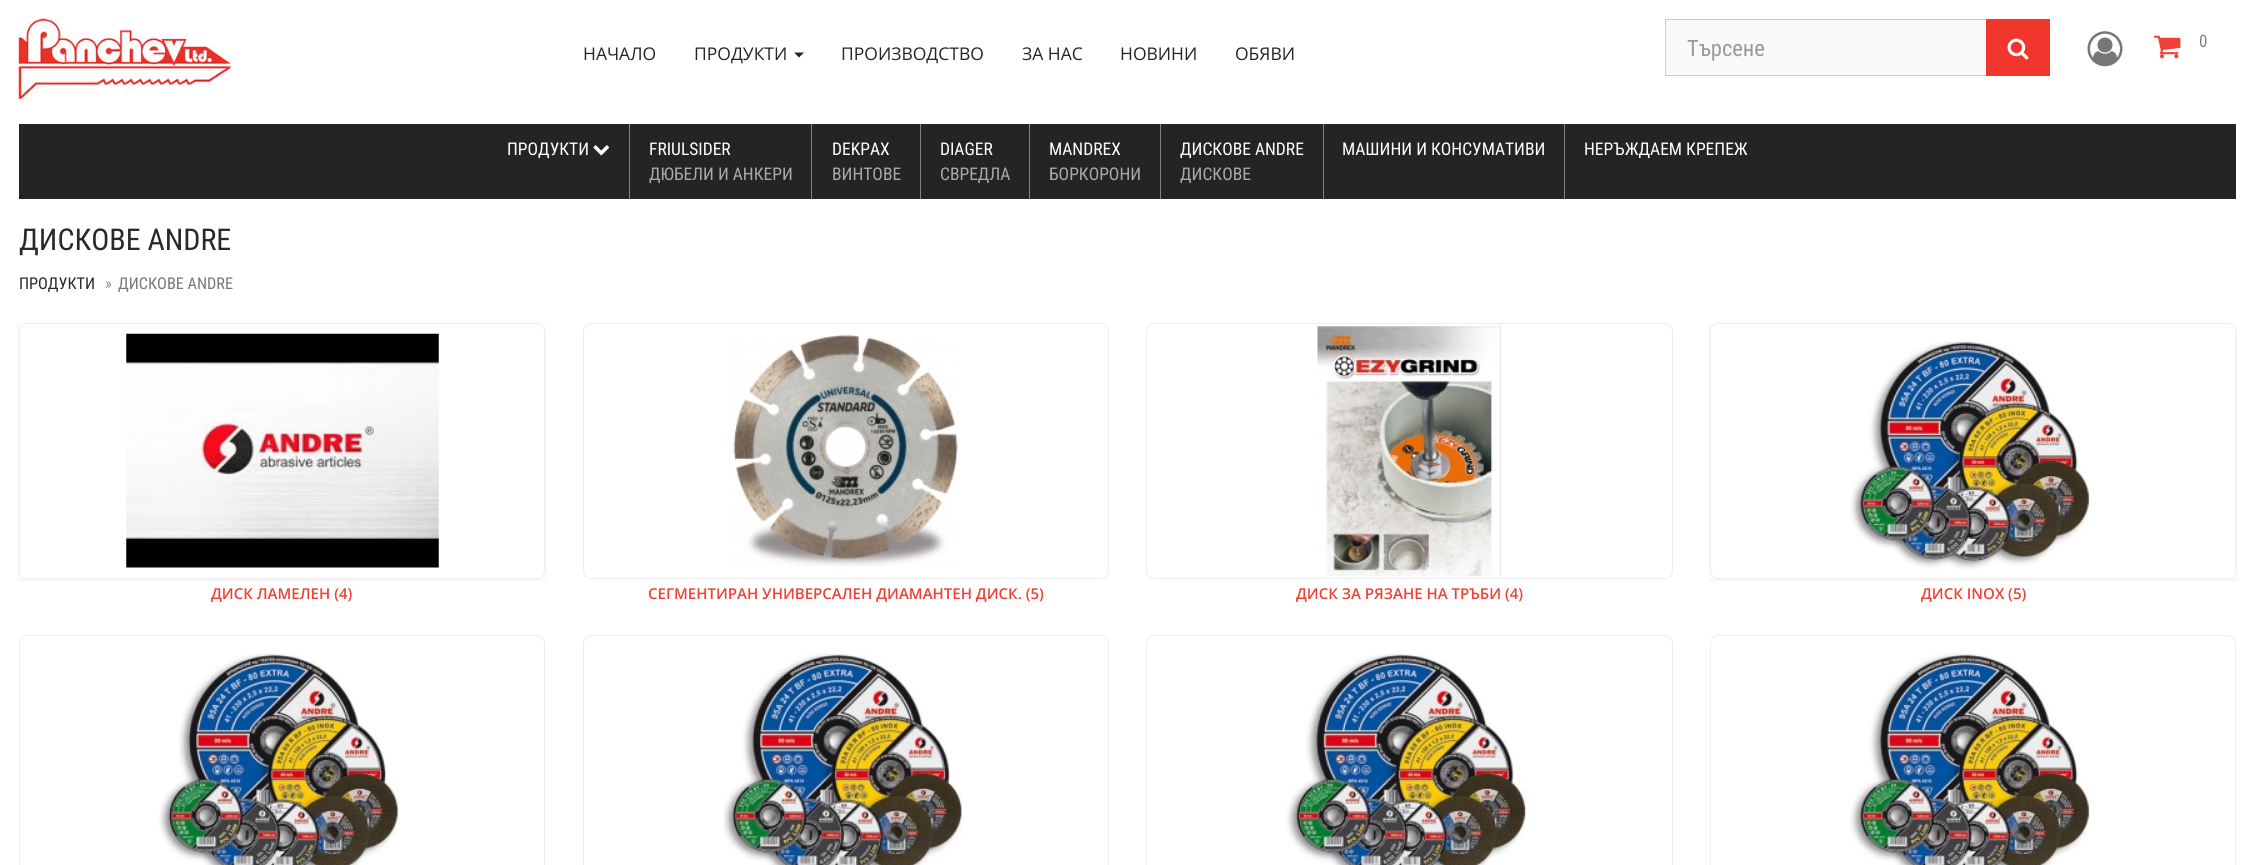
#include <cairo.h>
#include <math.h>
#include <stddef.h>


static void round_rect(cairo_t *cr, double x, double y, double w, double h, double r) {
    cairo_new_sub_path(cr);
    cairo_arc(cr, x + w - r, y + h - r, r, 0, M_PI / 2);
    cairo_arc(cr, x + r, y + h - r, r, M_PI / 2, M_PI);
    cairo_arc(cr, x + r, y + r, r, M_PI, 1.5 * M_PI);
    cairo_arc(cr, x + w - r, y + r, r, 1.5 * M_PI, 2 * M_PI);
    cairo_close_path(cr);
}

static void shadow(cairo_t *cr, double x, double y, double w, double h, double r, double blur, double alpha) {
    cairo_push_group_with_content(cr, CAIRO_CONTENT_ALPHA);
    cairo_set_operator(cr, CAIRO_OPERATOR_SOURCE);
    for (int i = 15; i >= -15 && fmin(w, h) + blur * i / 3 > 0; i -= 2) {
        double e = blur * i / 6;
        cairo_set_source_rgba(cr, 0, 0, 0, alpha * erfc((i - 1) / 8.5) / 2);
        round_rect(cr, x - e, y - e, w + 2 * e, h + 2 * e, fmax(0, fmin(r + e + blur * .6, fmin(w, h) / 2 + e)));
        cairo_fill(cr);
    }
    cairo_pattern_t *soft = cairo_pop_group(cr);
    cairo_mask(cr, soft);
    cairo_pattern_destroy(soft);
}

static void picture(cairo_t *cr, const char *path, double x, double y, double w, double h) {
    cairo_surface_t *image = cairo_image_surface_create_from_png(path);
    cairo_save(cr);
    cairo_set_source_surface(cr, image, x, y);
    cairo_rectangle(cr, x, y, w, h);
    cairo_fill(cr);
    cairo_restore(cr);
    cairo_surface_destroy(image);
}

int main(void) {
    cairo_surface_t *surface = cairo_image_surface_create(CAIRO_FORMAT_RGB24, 2255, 865);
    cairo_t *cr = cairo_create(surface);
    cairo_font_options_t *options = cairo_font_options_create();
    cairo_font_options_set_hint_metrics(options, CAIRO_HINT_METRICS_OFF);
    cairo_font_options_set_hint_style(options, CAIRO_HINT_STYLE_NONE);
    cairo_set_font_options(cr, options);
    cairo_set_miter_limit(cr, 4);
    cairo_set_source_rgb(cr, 1, 1, 1);
    cairo_paint(cr);
    picture(cr, "img1.png", 18, 18, 214, 81);
    cairo_select_font_face(cr, "Open Sans", CAIRO_FONT_SLANT_NORMAL, CAIRO_FONT_WEIGHT_NORMAL);
    cairo_set_font_size(cr, 17.5);
    cairo_set_source_rgb(cr, 0.145, 0.141, 0.141);
    cairo_move_to(cr, 583, 60);
    cairo_show_text(cr, "НАЧАЛО");
    cairo_move_to(cr, 694, 60);
    cairo_show_text(cr, "ПРОДУКТИ");
    cairo_new_path(cr);
    cairo_move_to(cr, 794, 52.5);
    cairo_line_to(cr, 804, 52.5);
    cairo_line_to(cr, 799, 57.5);
    cairo_close_path(cr);
    cairo_fill(cr);
    cairo_move_to(cr, 841, 60);
    cairo_show_text(cr, "ПРОИЗВОДСТВО");
    cairo_move_to(cr, 1022, 60);
    cairo_show_text(cr, "ЗА НАС");
    cairo_move_to(cr, 1120, 60);
    cairo_show_text(cr, "НОВИНИ");
    cairo_move_to(cr, 1235, 60);
    cairo_show_text(cr, "ОБЯВИ");
    cairo_set_source_rgb(cr, 0.976, 0.976, 0.976);
    cairo_rectangle(cr, 1666, 20, 320, 55);
    cairo_fill(cr);
    cairo_set_source_rgb(cr, 0.796, 0.796, 0.796);
    cairo_rectangle(cr, 1665, 19, 323, 1);
    cairo_fill(cr);
    cairo_rectangle(cr, 1665, 75, 323, 1);
    cairo_fill(cr);
    cairo_rectangle(cr, 1665, 19, 1, 57);
    cairo_fill(cr);
    cairo_select_font_face(cr, "Roboto Condensed", CAIRO_FONT_SLANT_NORMAL, CAIRO_FONT_WEIGHT_NORMAL);
    cairo_set_font_size(cr, 22.5);
    cairo_set_source_rgb(cr, 0.6, 0.6, 0.6);
    cairo_move_to(cr, 1687, 56);
    cairo_show_text(cr, "Търсене");
    cairo_set_source_rgb(cr, 0.945, 0.216, 0.176);
    cairo_rectangle(cr, 1986, 19, 64, 57);
    cairo_fill(cr);
    picture(cr, "img2.png", 2007, 38, 22, 22);
    picture(cr, "img3.png", 2087, 31, 36, 36);
    picture(cr, "img4.png", 2153, 35, 28, 24);
    cairo_set_font_size(cr, 17);
    cairo_set_source_rgb(cr, 0.51, 0.51, 0.51);
    cairo_move_to(cr, 2199, 47);
    cairo_show_text(cr, "0");
    cairo_set_source_rgb(cr, 0.145, 0.141, 0.141);
    cairo_rectangle(cr, 19, 124, 2217, 75);
    cairo_fill(cr);
    cairo_set_font_size(cr, 17.5);
    cairo_set_source_rgb(cr, 1, 1, 1);
    cairo_move_to(cr, 507, 155);
    cairo_show_text(cr, "ПРОДУКТИ");
    picture(cr, "img5.png", 593, 145, 17, 11);
    cairo_set_source_rgb(cr, 0.518, 0.518, 0.518);
    cairo_rectangle(cr, 629, 124, 1, 75);
    cairo_fill(cr);
    cairo_set_source_rgb(cr, 1, 1, 1);
    cairo_move_to(cr, 649, 155);
    cairo_show_text(cr, "FRIULSIDER");
    cairo_set_source_rgb(cr, 0.671, 0.667, 0.667);
    cairo_move_to(cr, 649, 180);
    cairo_show_text(cr, "ДЮБЕЛИ И АНКЕРИ");
    cairo_set_source_rgb(cr, 0.518, 0.518, 0.518);
    cairo_rectangle(cr, 811, 124, 1, 75);
    cairo_fill(cr);
    cairo_set_source_rgb(cr, 1, 1, 1);
    cairo_move_to(cr, 832, 155);
    cairo_show_text(cr, "DEKPAX");
    cairo_set_source_rgb(cr, 0.671, 0.667, 0.667);
    cairo_move_to(cr, 832, 180);
    cairo_show_text(cr, "ВИНТОВЕ");
    cairo_set_source_rgb(cr, 0.518, 0.518, 0.518);
    cairo_rectangle(cr, 920, 124, 1, 75);
    cairo_fill(cr);
    cairo_set_source_rgb(cr, 1, 1, 1);
    cairo_move_to(cr, 940, 155);
    cairo_show_text(cr, "DIAGER");
    cairo_set_source_rgb(cr, 0.671, 0.667, 0.667);
    cairo_move_to(cr, 940, 180);
    cairo_show_text(cr, "СВРЕДЛА");
    cairo_set_source_rgb(cr, 0.518, 0.518, 0.518);
    cairo_rectangle(cr, 1029, 124, 1, 75);
    cairo_fill(cr);
    cairo_set_source_rgb(cr, 1, 1, 1);
    cairo_move_to(cr, 1049, 155);
    cairo_show_text(cr, "MANDREX");
    cairo_set_source_rgb(cr, 0.671, 0.667, 0.667);
    cairo_move_to(cr, 1049, 180);
    cairo_show_text(cr, "БОРКОРОНИ");
    cairo_set_source_rgb(cr, 0.518, 0.518, 0.518);
    cairo_rectangle(cr, 1160, 124, 1, 75);
    cairo_fill(cr);
    cairo_set_source_rgb(cr, 1, 1, 1);
    cairo_move_to(cr, 1180, 155);
    cairo_show_text(cr, "ДИСКОВЕ ANDRE");
    cairo_set_source_rgb(cr, 0.671, 0.667, 0.667);
    cairo_move_to(cr, 1180, 180);
    cairo_show_text(cr, "ДИСКОВЕ");
    cairo_set_source_rgb(cr, 0.518, 0.518, 0.518);
    cairo_rectangle(cr, 1323, 124, 1, 75);
    cairo_fill(cr);
    cairo_set_source_rgb(cr, 1, 1, 1);
    cairo_move_to(cr, 1342, 155);
    cairo_show_text(cr, "МАШИНИ И КОНСУМАТИВИ");
    cairo_set_source_rgb(cr, 0.518, 0.518, 0.518);
    cairo_rectangle(cr, 1564, 124, 1, 75);
    cairo_fill(cr);
    cairo_set_source_rgb(cr, 1, 1, 1);
    cairo_move_to(cr, 1584, 155);
    cairo_show_text(cr, "НЕРЪЖДАЕМ КРЕПЕЖ");
    cairo_set_font_size(cr, 30);
    cairo_set_source_rgb(cr, 0.145, 0.165, 0.184);
    cairo_move_to(cr, 19, 250);
    cairo_show_text(cr, "ДИСКОВЕ ANDRE");
    cairo_set_font_size(cr, 16.25);
    cairo_move_to(cr, 19, 289);
    cairo_show_text(cr, "ПРОДУКТИ");
    cairo_set_source_rgb(cr, 0.529, 0.541, 0.549);
    cairo_move_to(cr, 105, 289);
    cairo_show_text(cr, "»");
    cairo_set_source_rgb(cr, 0.467, 0.467, 0.467);
    cairo_move_to(cr, 118, 289);
    cairo_show_text(cr, "ДИСКОВЕ ANDRE");
    cairo_save(cr);
    cairo_set_fill_rule(cr, CAIRO_FILL_RULE_EVEN_ODD);
    cairo_new_path(cr);
    cairo_move_to(cr, 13, 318);
    cairo_line_to(cr, 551, 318);
    cairo_line_to(cr, 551, 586);
    cairo_line_to(cr, 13, 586);
    cairo_close_path(cr);
    cairo_move_to(cr, 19, 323);
    cairo_line_to(cr, 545, 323);
    cairo_line_to(cr, 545, 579);
    cairo_line_to(cr, 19, 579);
    cairo_close_path(cr);
    cairo_clip(cr);
    cairo_set_source_rgb(cr, 0, 0, 0);
    shadow(cr, 19, 324, 526, 256, 0, 1.5, 0.08);
    cairo_restore(cr);
    round_rect(cr, 19.5, 323.5, 525, 255, 7.5);
    cairo_set_source_rgb(cr, 0.933, 0.933, 0.933);
    cairo_set_line_width(cr, 1);
    cairo_stroke(cr);
    picture(cr, "img6.png", 126, 333, 313, 235);
    cairo_select_font_face(cr, "Open Sans SemiBold", CAIRO_FONT_SLANT_NORMAL, CAIRO_FONT_WEIGHT_NORMAL);
    cairo_set_font_size(cr, 15);
    cairo_set_source_rgb(cr, 0.937, 0.255, 0.208);
    cairo_move_to(cr, 211, 599);
    cairo_show_text(cr, "ДИСК ЛАМЕЛЕН (4)");
    round_rect(cr, 583.5, 323.5, 525, 255, 7.5);
    cairo_set_source_rgb(cr, 0.933, 0.933, 0.933);
    cairo_stroke(cr);
    picture(cr, "img7.png", 733, 334, 225, 233);
    cairo_set_source_rgb(cr, 0.937, 0.255, 0.208);
    cairo_move_to(cr, 648, 599);
    cairo_show_text(cr, "СЕГМЕНТИРАН УНИВЕРСАЛЕН ДИАМАНТЕН ДИСК. (5)");
    round_rect(cr, 1146.5, 323.5, 526, 255, 7.5);
    cairo_set_source_rgb(cr, 0.933, 0.933, 0.933);
    cairo_stroke(cr);
    picture(cr, "img8.png", 1317, 326, 185, 251);
    cairo_set_source_rgb(cr, 0.937, 0.255, 0.208);
    cairo_move_to(cr, 1296, 599);
    cairo_show_text(cr, "ДИСК ЗА РЯЗАНЕ НА ТРЪБИ (4)");
    cairo_save(cr);
    cairo_set_fill_rule(cr, CAIRO_FILL_RULE_EVEN_ODD);
    cairo_new_path(cr);
    cairo_move_to(cr, 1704, 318);
    cairo_line_to(cr, 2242, 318);
    cairo_line_to(cr, 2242, 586);
    cairo_line_to(cr, 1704, 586);
    cairo_close_path(cr);
    cairo_move_to(cr, 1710, 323);
    cairo_line_to(cr, 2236, 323);
    cairo_line_to(cr, 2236, 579);
    cairo_line_to(cr, 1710, 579);
    cairo_close_path(cr);
    cairo_clip(cr);
    cairo_set_source_rgb(cr, 0, 0, 0);
    shadow(cr, 1710, 324, 526, 256, 0, 1.5, 0.08);
    cairo_restore(cr);
    round_rect(cr, 1710.5, 323.5, 525, 255, 7.5);
    cairo_set_source_rgb(cr, 0.933, 0.933, 0.933);
    cairo_stroke(cr);
    picture(cr, "img9.png", 1850, 340, 240, 230);
    cairo_set_source_rgb(cr, 0.937, 0.255, 0.208);
    cairo_move_to(cr, 1921, 599);
    cairo_show_text(cr, "ДИСК INOX (5)");
    round_rect(cr, 19.5, 635.5, 525, 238, 7.5);
    cairo_set_source_rgb(cr, 0.933, 0.933, 0.933);
    cairo_stroke(cr);
    picture(cr, "img10.png", 159, 653, 240, 212);
    round_rect(cr, 583.5, 635.5, 525, 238, 7.5);
    cairo_stroke(cr);
    picture(cr, "img11.png", 723, 653, 240, 212);
    round_rect(cr, 1146.5, 635.5, 526, 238, 7.5);
    cairo_stroke(cr);
    picture(cr, "img12.png", 1286, 653, 241, 212);
    round_rect(cr, 1710.5, 635.5, 525, 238, 7.5);
    cairo_stroke(cr);
    picture(cr, "img13.png", 1850, 653, 240, 212);
    cairo_surface_write_to_png(surface, "page.png");
    cairo_font_options_destroy(options);
    cairo_destroy(cr);
    cairo_surface_destroy(surface);
    return 0;
}
